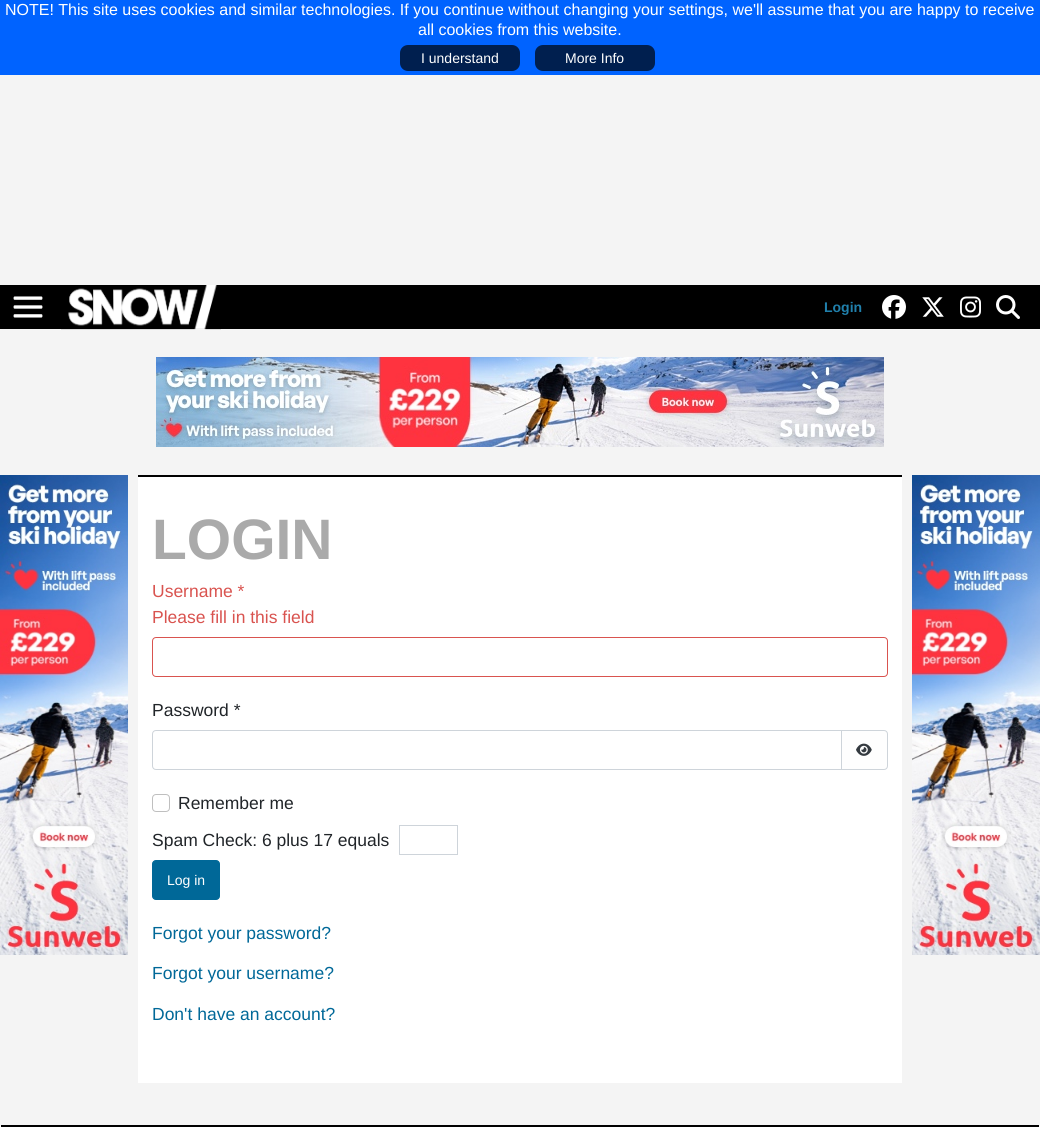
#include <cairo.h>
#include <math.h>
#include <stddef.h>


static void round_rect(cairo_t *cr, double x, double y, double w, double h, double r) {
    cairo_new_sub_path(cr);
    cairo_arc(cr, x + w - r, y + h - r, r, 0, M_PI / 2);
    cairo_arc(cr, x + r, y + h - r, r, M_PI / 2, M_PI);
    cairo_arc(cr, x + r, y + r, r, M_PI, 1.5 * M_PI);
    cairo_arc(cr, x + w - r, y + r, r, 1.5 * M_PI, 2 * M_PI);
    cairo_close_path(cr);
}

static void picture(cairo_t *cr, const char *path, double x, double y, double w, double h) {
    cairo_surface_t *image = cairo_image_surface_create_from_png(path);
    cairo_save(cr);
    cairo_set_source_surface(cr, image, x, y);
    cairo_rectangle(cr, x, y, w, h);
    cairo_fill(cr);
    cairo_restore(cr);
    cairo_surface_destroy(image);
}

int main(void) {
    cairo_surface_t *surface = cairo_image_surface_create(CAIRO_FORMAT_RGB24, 1040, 1138);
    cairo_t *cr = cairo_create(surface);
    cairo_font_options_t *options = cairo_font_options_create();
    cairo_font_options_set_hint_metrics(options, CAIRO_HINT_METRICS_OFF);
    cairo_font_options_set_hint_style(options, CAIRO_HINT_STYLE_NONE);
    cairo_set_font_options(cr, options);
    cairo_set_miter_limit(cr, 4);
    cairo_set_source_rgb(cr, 0.957, 0.957, 0.957);
    cairo_paint(cr);
    cairo_set_source_rgb(cr, 0, 0.388, 1);
    cairo_rectangle(cr, 0, 0, 1040, 75);
    cairo_fill(cr);
    cairo_select_font_face(cr, "Liberation Sans", CAIRO_FONT_SLANT_NORMAL, CAIRO_FONT_WEIGHT_NORMAL);
    cairo_set_font_size(cr, 16);
    cairo_set_source_rgb(cr, 1, 1, 1);
    cairo_move_to(cr, 5, 15);
    cairo_show_text(cr, "NOTE! This site uses cookies and similar technologies. If you continue without changing your settings, we'll assume that you are happy to receive");
    cairo_move_to(cr, 418, 35);
    cairo_show_text(cr, "all cookies from this website.");
    cairo_set_source_rgb(cr, 0, 0.122, 0.31);
    round_rect(cr, 400, 45, 120, 26, 8);
    cairo_fill(cr);
    cairo_set_font_size(cr, 14);
    cairo_set_source_rgb(cr, 1, 1, 1);
    cairo_move_to(cr, 421, 63);
    cairo_show_text(cr, "I understand");
    cairo_set_source_rgb(cr, 0, 0.122, 0.31);
    round_rect(cr, 535, 45, 120, 26, 8);
    cairo_fill(cr);
    cairo_set_source_rgb(cr, 1, 1, 1);
    cairo_move_to(cr, 565, 63);
    cairo_show_text(cr, "More Info");
    cairo_set_source_rgb(cr, 0, 0, 0);
    cairo_rectangle(cr, 0, 285, 1040, 44);
    cairo_fill(cr);
    picture(cr, "img1.png", 13, 296, 30, 22);
    picture(cr, "img2.png", 61, 285, 160, 45);
    cairo_select_font_face(cr, "Liberation Sans", CAIRO_FONT_SLANT_NORMAL, CAIRO_FONT_WEIGHT_BOLD);
    cairo_set_source_rgb(cr, 0.125, 0.502, 0.675);
    cairo_move_to(cr, 824, 312);
    cairo_show_text(cr, "Login");
    picture(cr, "img3.png", 882, 295, 24, 24);
    picture(cr, "img4.png", 922, 297, 22, 20);
    picture(cr, "img5.png", 960, 296, 21, 22);
    picture(cr, "img6.png", 996, 295, 24, 24);
    picture(cr, "img7.png", 156, 357, 728, 90);
    picture(cr, "img8.png", 0, 475, 128, 480);
    cairo_set_source_rgb(cr, 1, 1, 1);
    cairo_rectangle(cr, 138, 477, 764, 606);
    cairo_fill(cr);
    cairo_set_source_rgb(cr, 0, 0, 0);
    cairo_rectangle(cr, 138, 475, 764, 2);
    cairo_fill(cr);
    cairo_set_font_size(cr, 57);
    cairo_set_source_rgb(cr, 0.667, 0.667, 0.667);
    cairo_move_to(cr, 152, 559);
    cairo_show_text(cr, "LOGIN");
    cairo_select_font_face(cr, "Liberation Sans", CAIRO_FONT_SLANT_NORMAL, CAIRO_FONT_WEIGHT_NORMAL);
    cairo_set_font_size(cr, 17.5);
    cairo_set_source_rgb(cr, 0.851, 0.325, 0.31);
    cairo_move_to(cr, 152, 597);
    cairo_show_text(cr, "Username *");
    cairo_move_to(cr, 152, 623);
    cairo_show_text(cr, "Please fill in this field");
    round_rect(cr, 152.5, 637.5, 735, 39, 3.5);
    cairo_set_line_width(cr, 1);
    cairo_stroke(cr);
    cairo_set_source_rgb(cr, 0.129, 0.145, 0.161);
    cairo_move_to(cr, 152, 716);
    cairo_show_text(cr, "Password *");
    cairo_new_path(cr);
    cairo_move_to(cr, 156, 730.5);
    cairo_line_to(cr, 841.5, 730.5);
    cairo_line_to(cr, 841.5, 769.5);
    cairo_line_to(cr, 156, 769.5);
    cairo_curve_to(cr, 154, 769.5, 152.5, 768, 152.5, 766);
    cairo_line_to(cr, 152.5, 734);
    cairo_curve_to(cr, 152.5, 732, 154, 730.5, 156, 730.5);
    cairo_close_path(cr);
    cairo_set_source_rgb(cr, 0.808, 0.831, 0.855);
    cairo_stroke(cr);
    cairo_set_source_rgb(cr, 0.996, 0.996, 0.996);
    cairo_new_path(cr);
    cairo_move_to(cr, 841.5, 730.5);
    cairo_line_to(cr, 884, 730.5);
    cairo_curve_to(cr, 886, 730.5, 887.5, 732, 887.5, 734);
    cairo_line_to(cr, 887.5, 766);
    cairo_curve_to(cr, 887.5, 768, 886, 769.5, 884, 769.5);
    cairo_line_to(cr, 841.5, 769.5);
    cairo_close_path(cr);
    cairo_fill_preserve(cr);
    cairo_set_source_rgb(cr, 0.808, 0.831, 0.855);
    cairo_stroke(cr);
    picture(cr, "img9.png", 856, 743, 16, 13);
    round_rect(cr, 152.5, 794.5, 17, 17, 3.5);
    cairo_set_source_rgb(cr, 0.749, 0.749, 0.749);
    cairo_stroke(cr);
    cairo_set_source_rgb(cr, 0.129, 0.145, 0.161);
    cairo_move_to(cr, 178, 809);
    cairo_show_text(cr, "Remember me");
    cairo_move_to(cr, 152, 846);
    cairo_show_text(cr, "Spam Check: 6 plus 17 equals");
    cairo_rectangle(cr, 399.5, 825.5, 58, 29);
    cairo_set_source_rgb(cr, 0.808, 0.831, 0.855);
    cairo_stroke(cr);
    cairo_set_source_rgb(cr, 0, 0.408, 0.596);
    round_rect(cr, 152.5, 860.5, 67, 39, 3.5);
    cairo_fill_preserve(cr);
    cairo_stroke(cr);
    cairo_set_font_size(cr, 14);
    cairo_set_source_rgb(cr, 1, 1, 1);
    cairo_move_to(cr, 167, 885);
    cairo_show_text(cr, "Log in");
    cairo_set_font_size(cr, 17.5);
    cairo_set_source_rgb(cr, 0, 0.408, 0.596);
    cairo_move_to(cr, 152, 939);
    cairo_show_text(cr, "Forgot your password?");
    cairo_move_to(cr, 152, 979);
    cairo_show_text(cr, "Forgot your username?");
    cairo_move_to(cr, 152, 1020);
    cairo_show_text(cr, "Don't have an account?");
    picture(cr, "img8.png", 912, 475, 128, 480);
    cairo_set_source_rgb(cr, 1, 1, 1);
    cairo_new_path(cr);
    cairo_move_to(cr, 2.5, 1125);
    cairo_line_to(cr, 1037.5, 1125);
    cairo_curve_to(cr, 1039, 1125, 1040, 1126, 1040, 1127.5);
    cairo_line_to(cr, 1040, 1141);
    cairo_line_to(cr, 0, 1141);
    cairo_line_to(cr, 0, 1127.5);
    cairo_curve_to(cr, 0, 1126, 1, 1125, 2.5, 1125);
    cairo_close_path(cr);
    cairo_fill(cr);
    cairo_set_source_rgb(cr, 0, 0, 0);
    cairo_rectangle(cr, 1, 1125, 1038, 2);
    cairo_fill(cr);
    cairo_surface_write_to_png(surface, "page.png");
    cairo_font_options_destroy(options);
    cairo_destroy(cr);
    cairo_surface_destroy(surface);
    return 0;
}
